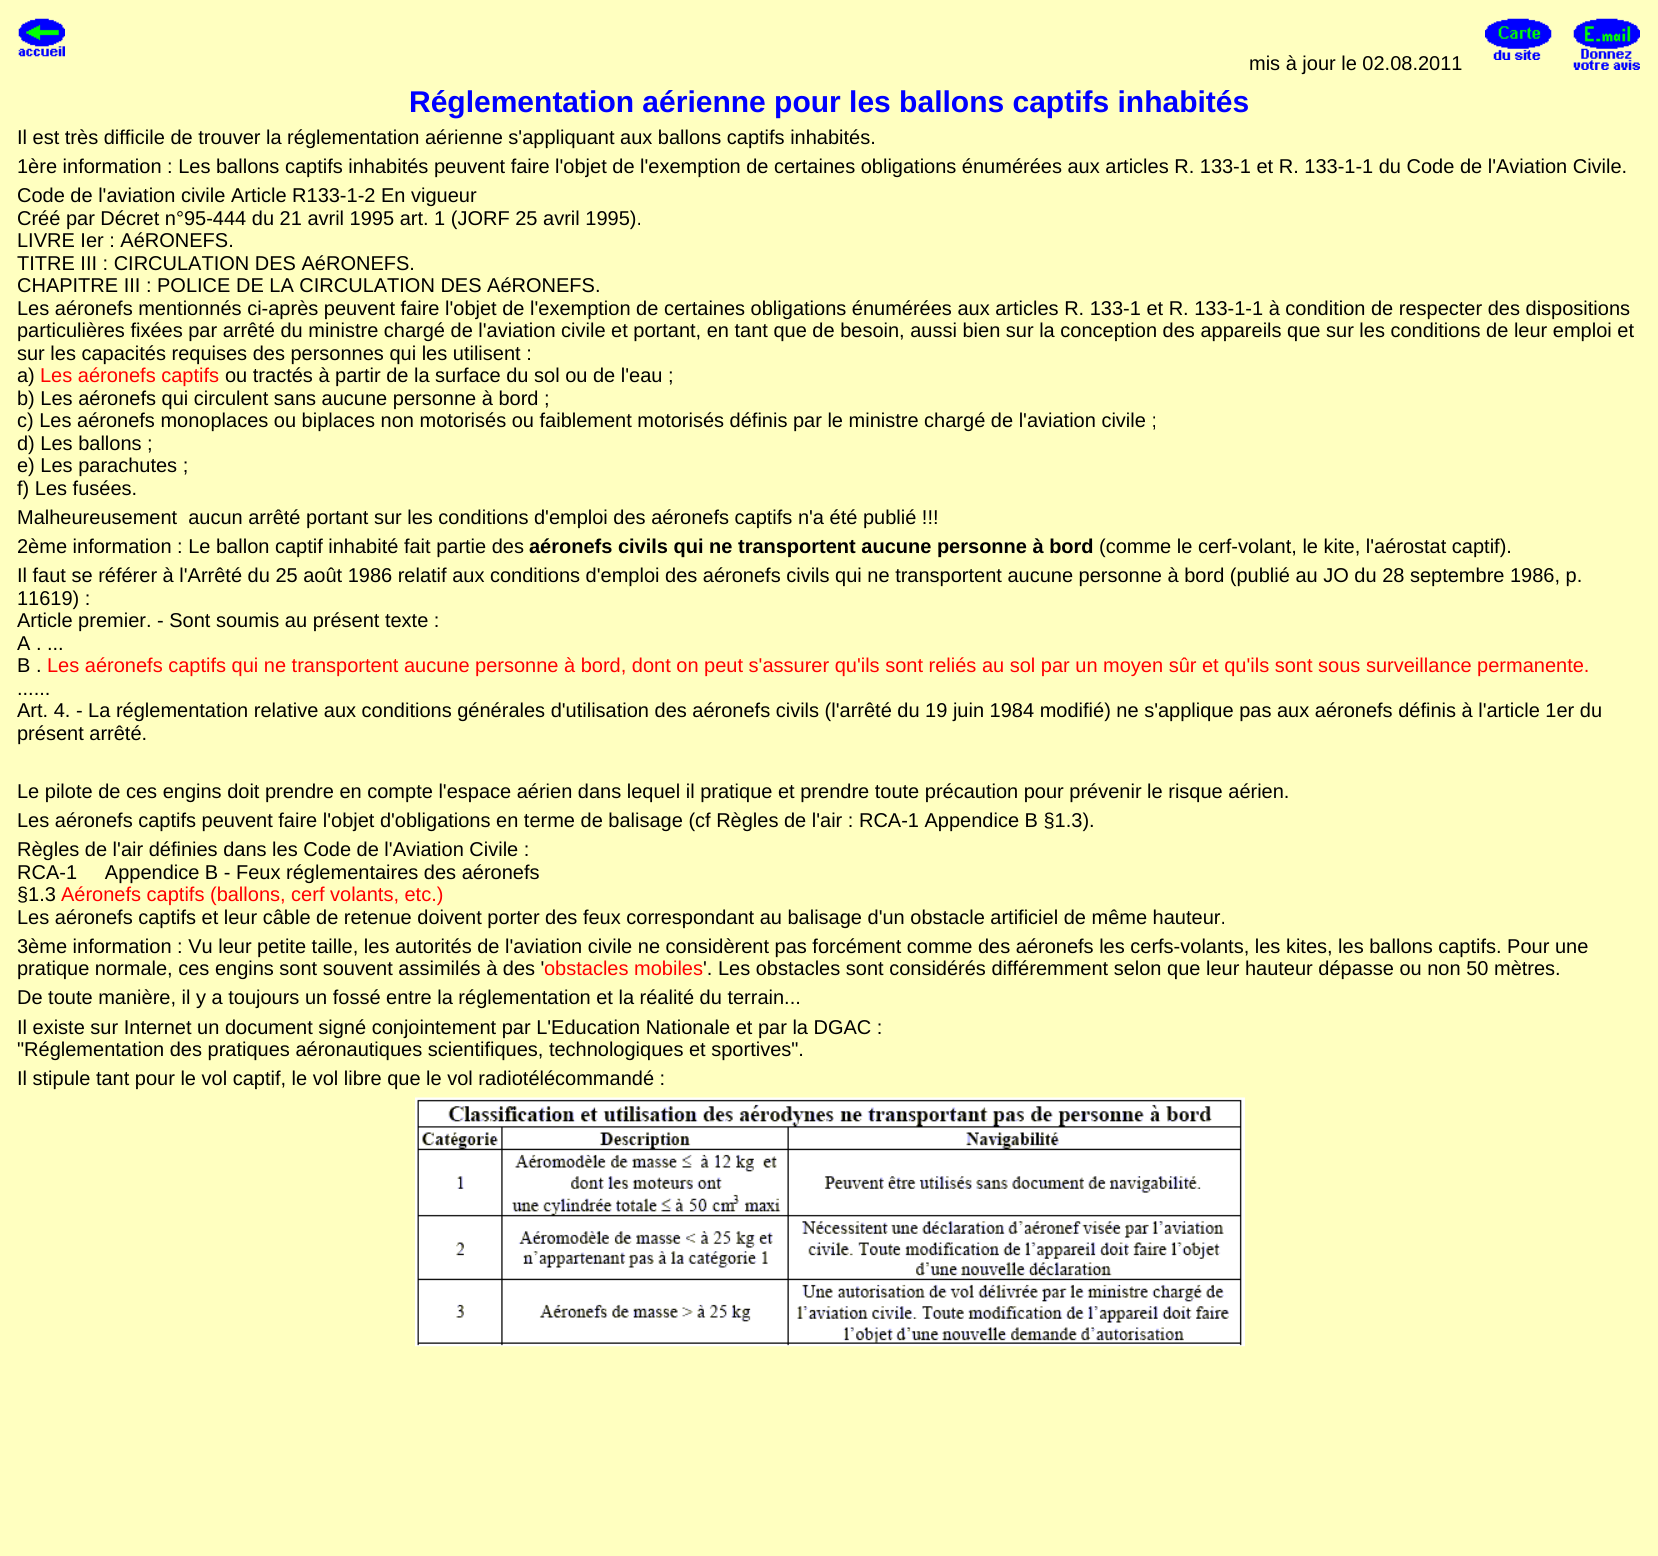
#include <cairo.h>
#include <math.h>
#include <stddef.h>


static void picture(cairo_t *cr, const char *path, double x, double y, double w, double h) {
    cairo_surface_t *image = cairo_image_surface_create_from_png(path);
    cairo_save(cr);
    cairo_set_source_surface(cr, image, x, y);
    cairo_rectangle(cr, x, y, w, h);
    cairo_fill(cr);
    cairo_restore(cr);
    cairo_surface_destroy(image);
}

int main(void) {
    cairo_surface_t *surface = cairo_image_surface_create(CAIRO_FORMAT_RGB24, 1658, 1556);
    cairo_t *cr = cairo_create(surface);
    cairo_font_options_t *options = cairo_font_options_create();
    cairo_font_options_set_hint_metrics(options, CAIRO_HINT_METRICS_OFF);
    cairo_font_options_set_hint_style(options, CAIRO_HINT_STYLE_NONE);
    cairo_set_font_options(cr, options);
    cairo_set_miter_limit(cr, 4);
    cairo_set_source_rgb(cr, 1, 1, 0.753);
    cairo_paint(cr);
    picture(cr, "img1.png", 18, 18, 47, 39);
    cairo_select_font_face(cr, "Liberation Sans", CAIRO_FONT_SLANT_NORMAL, CAIRO_FONT_WEIGHT_NORMAL);
    cairo_set_font_size(cr, 20);
    cairo_set_source_rgb(cr, 0, 0, 0);
    cairo_move_to(cr, 1249, 70);
    cairo_show_text(cr, "mis à jour le 02.08.2011");
    picture(cr, "img2.png", 1485, 18, 67, 42);
    picture(cr, "img3.png", 1573, 18, 67, 52);
    cairo_select_font_face(cr, "Liberation Sans", CAIRO_FONT_SLANT_NORMAL, CAIRO_FONT_WEIGHT_BOLD);
    cairo_set_font_size(cr, 30);
    cairo_set_source_rgb(cr, 0, 0, 1);
    cairo_move_to(cr, 409, 112);
    cairo_show_text(cr, "Réglementation aérienne pour les ballons captifs inhabités");
    cairo_select_font_face(cr, "Liberation Sans", CAIRO_FONT_SLANT_NORMAL, CAIRO_FONT_WEIGHT_NORMAL);
    cairo_set_font_size(cr, 20);
    cairo_set_source_rgb(cr, 0, 0, 0);
    cairo_move_to(cr, 17, 144);
    cairo_show_text(cr, "Il est très difficile de trouver la réglementation aérienne s'appliquant aux ballons captifs inhabités.");
    cairo_move_to(cr, 17, 173);
    cairo_show_text(cr, "1ère information : Les ballons captifs inhabités peuvent faire l'objet de l'exemption de certaines obligations énumérées aux articles R. 133-1 et R. 133-1-1 du Code de l'Aviation Civile.");
    cairo_move_to(cr, 17, 202);
    cairo_show_text(cr, "Code de l'aviation civile Article R133-1-2 En vigueur");
    cairo_move_to(cr, 17, 225);
    cairo_show_text(cr, "Créé par Décret n°95-444 du 21 avril 1995 art. 1 (JORF 25 avril 1995).");
    cairo_move_to(cr, 17, 247);
    cairo_show_text(cr, "LIVRE Ier : AéRONEFS.");
    cairo_move_to(cr, 17, 270);
    cairo_show_text(cr, "TITRE III : CIRCULATION DES AéRONEFS.");
    cairo_move_to(cr, 17, 292);
    cairo_show_text(cr, "CHAPITRE III : POLICE DE LA CIRCULATION DES AéRONEFS.");
    cairo_move_to(cr, 17, 315);
    cairo_show_text(cr, "Les aéronefs mentionnés ci-après peuvent faire l'objet de l'exemption de certaines obligations énumérées aux articles R. 133-1 et R. 133-1-1 à condition de respecter des dispositions");
    cairo_move_to(cr, 17, 337);
    cairo_show_text(cr, "particulières fixées par arrêté du ministre chargé de l'aviation civile et portant, en tant que de besoin, aussi bien sur la conception des appareils que sur les conditions de leur emploi et");
    cairo_move_to(cr, 17, 360);
    cairo_show_text(cr, "sur les capacités requises des personnes qui les utilisent :");
    cairo_move_to(cr, 17, 382);
    cairo_show_text(cr, "a)");
    cairo_set_source_rgb(cr, 1, 0, 0);
    cairo_move_to(cr, 40, 382);
    cairo_show_text(cr, "Les aéronefs captifs");
    cairo_set_source_rgb(cr, 0, 0, 0);
    cairo_move_to(cr, 225, 382);
    cairo_show_text(cr, "ou tractés à partir de la surface du sol ou de l'eau ;");
    cairo_move_to(cr, 17, 405);
    cairo_show_text(cr, "b) Les aéronefs qui circulent sans aucune personne à bord ;");
    cairo_move_to(cr, 17, 427);
    cairo_show_text(cr, "c) Les aéronefs monoplaces ou biplaces non motorisés ou faiblement motorisés définis par le ministre chargé de l'aviation civile ;");
    cairo_move_to(cr, 17, 450);
    cairo_show_text(cr, "d) Les ballons ;");
    cairo_move_to(cr, 17, 472);
    cairo_show_text(cr, "e) Les parachutes ;");
    cairo_move_to(cr, 17, 495);
    cairo_show_text(cr, "f) Les fusées.");
    cairo_move_to(cr, 17, 524);
    cairo_show_text(cr, "Malheureusement  aucun arrêté portant sur les conditions d'emploi des aéronefs captifs n'a été publié !!!");
    cairo_move_to(cr, 17, 553);
    cairo_show_text(cr, "2ème information : Le ballon captif inhabité fait partie des");
    cairo_select_font_face(cr, "Liberation Sans", CAIRO_FONT_SLANT_NORMAL, CAIRO_FONT_WEIGHT_BOLD);
    cairo_move_to(cr, 529, 553);
    cairo_show_text(cr, "aéronefs civils qui ne transportent aucune personne à bord");
    cairo_select_font_face(cr, "Liberation Sans", CAIRO_FONT_SLANT_NORMAL, CAIRO_FONT_WEIGHT_NORMAL);
    cairo_move_to(cr, 1099, 553);
    cairo_show_text(cr, "(comme le cerf-volant, le kite, l'aérostat captif).");
    cairo_move_to(cr, 17, 582);
    cairo_show_text(cr, "Il faut se référer à l'Arrêté du 25 août 1986 relatif aux conditions d'emploi des aéronefs civils qui ne transportent aucune personne à bord (publié au JO du 28 septembre 1986, p.");
    cairo_move_to(cr, 17, 605);
    cairo_show_text(cr, "11619) :");
    cairo_move_to(cr, 17, 627);
    cairo_show_text(cr, "Article premier. - Sont soumis au présent texte :");
    cairo_move_to(cr, 17, 650);
    cairo_show_text(cr, "A . ...");
    cairo_move_to(cr, 17, 672);
    cairo_show_text(cr, "B .");
    cairo_set_source_rgb(cr, 1, 0, 0);
    cairo_move_to(cr, 47, 672);
    cairo_show_text(cr, "Les aéronefs captifs qui ne transportent aucune personne à bord, dont on peut s'assurer qu'ils sont reliés au sol par un moyen sûr et qu'ils sont sous surveillance permanente.");
    cairo_set_source_rgb(cr, 0, 0, 0);
    cairo_move_to(cr, 17, 695);
    cairo_show_text(cr, "......");
    cairo_move_to(cr, 17, 717);
    cairo_show_text(cr, "Art. 4. - La réglementation relative aux conditions générales d'utilisation des aéronefs civils (l'arrêté du 19 juin 1984 modifié) ne s'applique pas aux aéronefs définis à l'article 1er du");
    cairo_move_to(cr, 17, 740);
    cairo_show_text(cr, "présent arrêté.");
    cairo_move_to(cr, 17, 798);
    cairo_show_text(cr, "Le pilote de ces engins doit prendre en compte l'espace aérien dans lequel il pratique et prendre toute précaution pour prévenir le risque aérien.");
    cairo_move_to(cr, 17, 827);
    cairo_show_text(cr, "Les aéronefs captifs peuvent faire l'objet d'obligations en terme de balisage (cf Règles de l'air : RCA-1 Appendice B §1.3).");
    cairo_move_to(cr, 17, 856);
    cairo_show_text(cr, "Règles de l'air définies dans les Code de l'Aviation Civile :");
    cairo_move_to(cr, 17, 879);
    cairo_show_text(cr, "RCA-1     Appendice B - Feux réglementaires des aéronefs");
    cairo_move_to(cr, 17, 901);
    cairo_show_text(cr, "§1.3");
    cairo_set_source_rgb(cr, 1, 0, 0);
    cairo_move_to(cr, 61, 901);
    cairo_show_text(cr, "Aéronefs captifs (ballons, cerf volants, etc.)");
    cairo_set_source_rgb(cr, 0, 0, 0);
    cairo_move_to(cr, 17, 924);
    cairo_show_text(cr, "Les aéronefs captifs et leur câble de retenue doivent porter des feux correspondant au balisage d'un obstacle artificiel de même hauteur.");
    cairo_move_to(cr, 17, 953);
    cairo_show_text(cr, "3ème information : Vu leur petite taille, les autorités de l'aviation civile ne considèrent pas forcément comme des aéronefs les cerfs-volants, les kites, les ballons captifs. Pour une");
    cairo_move_to(cr, 17, 975);
    cairo_show_text(cr, "pratique normale, ces engins sont souvent assimilés à des '");
    cairo_set_source_rgb(cr, 1, 0, 0);
    cairo_move_to(cr, 544, 975);
    cairo_show_text(cr, "obstacles mobiles");
    cairo_set_source_rgb(cr, 0, 0, 0);
    cairo_move_to(cr, 703, 975);
    cairo_show_text(cr, "'. Les obstacles sont considérés différemment selon que leur hauteur dépasse ou non 50 mètres.");
    cairo_move_to(cr, 17, 1004);
    cairo_show_text(cr, "De toute manière, il y a toujours un fossé entre la réglementation et la réalité du terrain...");
    cairo_move_to(cr, 17, 1034);
    cairo_show_text(cr, "Il existe sur Internet un document signé conjointement par L'Education Nationale et par la DGAC :");
    cairo_move_to(cr, 17, 1056);
    cairo_show_text(cr, "\"Réglementation des pratiques aéronautiques scientifiques, technologiques et sportives\".");
    cairo_move_to(cr, 17, 1085);
    cairo_show_text(cr, "Il stipule tant pour le vol captif, le vol libre que le vol radiotélécommandé :");
    picture(cr, "img4.png", 415, 1097, 830, 250);
    cairo_surface_write_to_png(surface, "page.png");
    cairo_font_options_destroy(options);
    cairo_destroy(cr);
    cairo_surface_destroy(surface);
    return 0;
}
